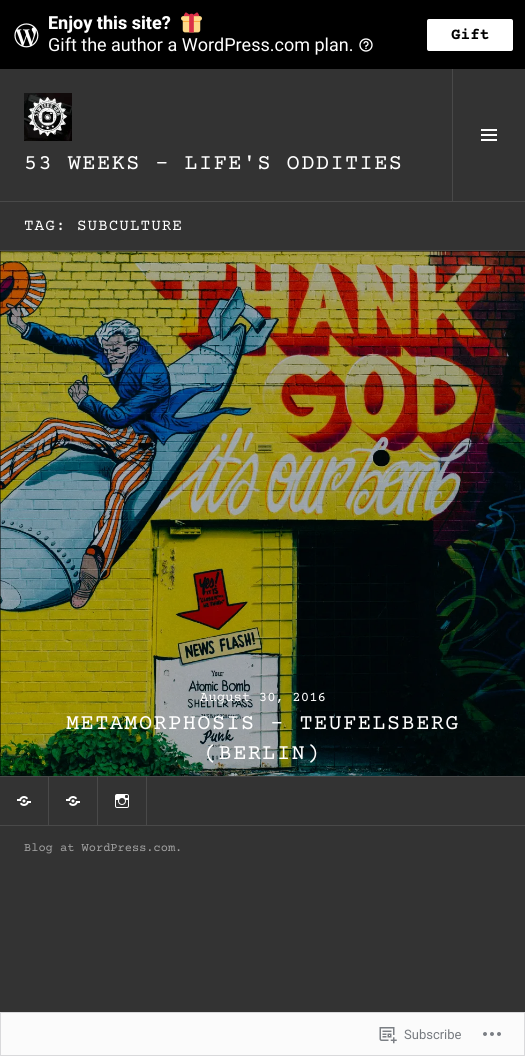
#include <cairo.h>
#include <math.h>
#include <stddef.h>


static void spaced_text(cairo_t *cr, double x, double y, const char *s, double letter, double word) {
    cairo_move_to(cr, x, y);
    while (*s) {
        char ch[5] = {0};
        int n = 0;
        do ch[n++] = *s++; while ((*s & 0xC0) == 0x80);
        cairo_show_text(cr, ch);
        cairo_rel_move_to(cr, letter + word * (*ch == ' '), 0);
    }
}

static void round_rect(cairo_t *cr, double x, double y, double w, double h, double r) {
    cairo_new_sub_path(cr);
    cairo_arc(cr, x + w - r, y + h - r, r, 0, M_PI / 2);
    cairo_arc(cr, x + r, y + h - r, r, M_PI / 2, M_PI);
    cairo_arc(cr, x + r, y + r, r, M_PI, 1.5 * M_PI);
    cairo_arc(cr, x + w - r, y + r, r, 1.5 * M_PI, 2 * M_PI);
    cairo_close_path(cr);
}

static void picture(cairo_t *cr, const char *path, double x, double y, double w, double h) {
    cairo_surface_t *image = cairo_image_surface_create_from_png(path);
    cairo_save(cr);
    cairo_set_source_surface(cr, image, x, y);
    cairo_rectangle(cr, x, y, w, h);
    cairo_fill(cr);
    cairo_restore(cr);
    cairo_surface_destroy(image);
}

int main(void) {
    cairo_surface_t *surface = cairo_image_surface_create(CAIRO_FORMAT_RGB24, 525, 1056);
    cairo_t *cr = cairo_create(surface);
    cairo_font_options_t *options = cairo_font_options_create();
    cairo_font_options_set_hint_metrics(options, CAIRO_HINT_METRICS_OFF);
    cairo_font_options_set_hint_style(options, CAIRO_HINT_STYLE_NONE);
    cairo_set_font_options(cr, options);
    cairo_set_miter_limit(cr, 4);
    cairo_set_source_rgb(cr, 0.2, 0.2, 0.2);
    cairo_paint(cr);
    cairo_set_source_rgb(cr, 0, 0, 0);
    cairo_rectangle(cr, 0, 0, 525, 69);
    cairo_fill(cr);
    picture(cr, "img1.png", 14, 23, 25, 25);
    cairo_select_font_face(cr, "Roboto ExtraBold", CAIRO_FONT_SLANT_NORMAL, CAIRO_FONT_WEIGHT_NORMAL);
    cairo_set_font_size(cr, 18);
    cairo_set_source_rgb(cr, 1, 1, 1);
    cairo_move_to(cr, 48, 29);
    cairo_show_text(cr, "Enjoy this site?");
    picture(cr, "img2.png", 181, 12, 21, 21);
    cairo_select_font_face(cr, "Roboto", CAIRO_FONT_SLANT_NORMAL, CAIRO_FONT_WEIGHT_NORMAL);
    cairo_move_to(cr, 48, 51);
    cairo_show_text(cr, "Gift the author a WordPress.com plan.");
    picture(cr, "img3.png", 359, 38, 14, 14);
    round_rect(cr, 427, 19, 86, 32, 2);
    cairo_fill(cr);
    cairo_select_font_face(cr, "Courier Prime", CAIRO_FONT_SLANT_NORMAL, CAIRO_FONT_WEIGHT_BOLD);
    cairo_set_font_size(cr, 16);
    cairo_set_source_rgb(cr, 0, 0, 0);
    cairo_move_to(cr, 451, 39);
    cairo_show_text(cr, "Gift");
    cairo_set_source_rgb(cr, 0.286, 0.286, 0.286);
    cairo_rectangle(cr, 0, 201, 525, 1);
    cairo_fill(cr);
    picture(cr, "img4.png", 24, 93, 48, 48);
    cairo_select_font_face(cr, "Courier Prime", CAIRO_FONT_SLANT_NORMAL, CAIRO_FONT_WEIGHT_NORMAL);
    cairo_set_font_size(cr, 22);
    cairo_set_source_rgb(cr, 1, 1, 1);
    spaced_text(cr, 24, 169, "53 WEEKS – LIFE'S ODDITIES", 1.4, 0);
    cairo_set_source_rgb(cr, 0.286, 0.286, 0.286);
    cairo_rectangle(cr, 452, 69, 1, 132);
    cairo_fill(cr);
    picture(cr, "img5.png", 481, 129, 16, 12);
    cairo_rectangle(cr, 0, 250, 525, 1);
    cairo_fill(cr);
    cairo_set_font_size(cr, 16);
    cairo_set_source_rgb(cr, 1, 1, 1);
    spaced_text(cr, 24, 230, "TAG: SUBCULTURE", 1, 0);
    cairo_set_source_rgb(cr, 0, 0, 0);
    cairo_rectangle(cr, 0, 251, 525, 525);
    cairo_fill(cr);
    picture(cr, "img6.png", 0, 251, 525, 525);
    cairo_set_font_size(cr, 14);
    cairo_set_source_rgb(cr, 1, 1, 1);
    cairo_move_to(cr, 200, 701);
    cairo_show_text(cr, "August 30, 2016");
    cairo_set_font_size(cr, 22);
    spaced_text(cr, 66, 729, "METAMORPHOSIS – TEUFELSBERG", 1.4, 0);
    spaced_text(cr, 204, 759, "(BERLIN)", 1.4, 0);
    cairo_set_source_rgb(cr, 0.286, 0.286, 0.286);
    cairo_rectangle(cr, 0, 776, 525, 1);
    cairo_fill(cr);
    picture(cr, "img7.png", 17, 796, 14, 10);
    cairo_save(cr);
    cairo_rectangle(cr, 0, 777, 525, 96);
    cairo_clip(cr);
    cairo_rectangle(cr, 48.5, 776.5, 49, 49);
    cairo_set_line_width(cr, 1);
    cairo_stroke(cr);
    cairo_restore(cr);
    picture(cr, "img7.png", 66, 796, 14, 10);
    cairo_save(cr);
    cairo_rectangle(cr, 0, 777, 525, 96);
    cairo_clip(cr);
    cairo_rectangle(cr, 97.5, 776.5, 49, 49);
    cairo_set_line_width(cr, 1);
    cairo_stroke(cr);
    cairo_restore(cr);
    picture(cr, "img8.png", 115, 794, 14, 14);
    cairo_rectangle(cr, 0, 825, 525, 1);
    cairo_fill(cr);
    cairo_set_font_size(cr, 12);
    cairo_set_source_rgb(cr, 0.639, 0.639, 0.639);
    cairo_move_to(cr, 24, 851);
    cairo_show_text(cr, "Blog at WordPress.com.");
    cairo_set_source_rgb(cr, 0.984, 0.984, 0.984);
    cairo_rectangle(cr, 0.5, 1012.5, 524, 43);
    cairo_fill_preserve(cr);
    cairo_set_source_rgb(cr, 0.851, 0.851, 0.859);
    cairo_set_line_width(cr, 1);
    cairo_stroke(cr);
    picture(cr, "img9.png", 379, 1027, 18, 17);
    cairo_select_font_face(cr, "Roboto", CAIRO_FONT_SLANT_NORMAL, CAIRO_FONT_WEIGHT_NORMAL);
    cairo_set_font_size(cr, 13);
    cairo_set_source_rgb(cr, 0.467, 0.482, 0.502);
    cairo_move_to(cr, 404, 1039);
    cairo_show_text(cr, "Subscribe");
    picture(cr, "img10.png", 483, 1032, 18, 4);
    cairo_surface_write_to_png(surface, "page.png");
    cairo_font_options_destroy(options);
    cairo_destroy(cr);
    cairo_surface_destroy(surface);
    return 0;
}
